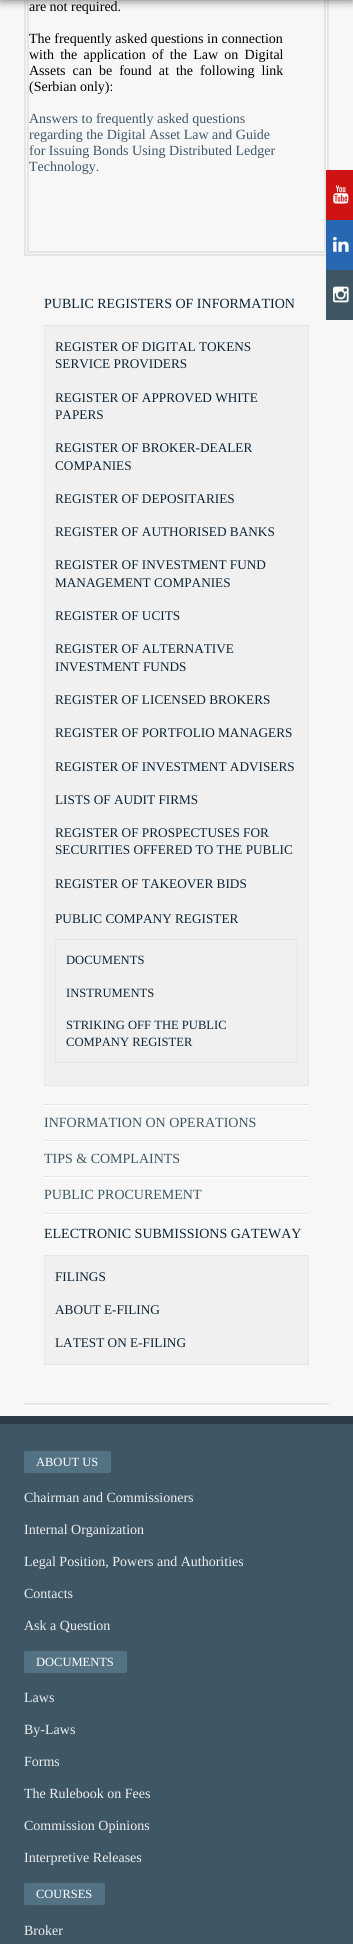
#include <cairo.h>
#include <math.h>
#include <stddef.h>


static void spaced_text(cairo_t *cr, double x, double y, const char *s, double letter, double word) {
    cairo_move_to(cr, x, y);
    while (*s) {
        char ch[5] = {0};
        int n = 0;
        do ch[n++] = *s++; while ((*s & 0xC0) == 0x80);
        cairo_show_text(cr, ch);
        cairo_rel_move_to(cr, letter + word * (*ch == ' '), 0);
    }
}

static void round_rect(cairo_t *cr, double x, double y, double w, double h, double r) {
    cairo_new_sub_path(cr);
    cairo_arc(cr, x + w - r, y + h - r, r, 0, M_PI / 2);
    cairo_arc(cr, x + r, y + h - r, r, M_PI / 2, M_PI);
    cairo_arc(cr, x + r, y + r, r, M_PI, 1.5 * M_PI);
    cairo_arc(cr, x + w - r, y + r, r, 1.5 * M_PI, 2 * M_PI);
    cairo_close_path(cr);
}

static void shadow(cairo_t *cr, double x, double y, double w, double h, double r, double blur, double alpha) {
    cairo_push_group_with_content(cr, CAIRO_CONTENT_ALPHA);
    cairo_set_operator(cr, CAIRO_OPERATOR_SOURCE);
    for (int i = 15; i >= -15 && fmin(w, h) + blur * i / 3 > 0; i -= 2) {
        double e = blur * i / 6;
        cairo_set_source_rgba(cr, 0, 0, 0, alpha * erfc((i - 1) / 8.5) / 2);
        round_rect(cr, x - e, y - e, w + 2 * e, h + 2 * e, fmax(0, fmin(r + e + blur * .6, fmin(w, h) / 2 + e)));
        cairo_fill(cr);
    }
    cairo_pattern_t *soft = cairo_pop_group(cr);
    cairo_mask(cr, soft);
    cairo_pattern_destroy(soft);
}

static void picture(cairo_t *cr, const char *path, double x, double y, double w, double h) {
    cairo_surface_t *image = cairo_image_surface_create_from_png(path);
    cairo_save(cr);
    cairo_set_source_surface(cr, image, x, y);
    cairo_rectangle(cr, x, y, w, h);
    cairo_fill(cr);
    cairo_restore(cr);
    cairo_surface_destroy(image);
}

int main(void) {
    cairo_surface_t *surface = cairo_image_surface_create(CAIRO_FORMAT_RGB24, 353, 1944);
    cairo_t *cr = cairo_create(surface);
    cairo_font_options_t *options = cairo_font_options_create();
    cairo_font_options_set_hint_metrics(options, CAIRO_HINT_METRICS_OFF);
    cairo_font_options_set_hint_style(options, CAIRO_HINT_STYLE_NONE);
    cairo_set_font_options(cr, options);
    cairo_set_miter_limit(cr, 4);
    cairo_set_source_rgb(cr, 0.965, 0.965, 0.965);
    cairo_paint(cr);
    cairo_rectangle(cr, 25, -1, 303, 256);
    cairo_set_source_rgb(cr, 0.898, 0.898, 0.898);
    cairo_stroke(cr);
    cairo_rectangle(cr, 28, -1, 297, 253);
    cairo_stroke(cr);
    cairo_set_source_rgb(cr, 0, 0, 0);
    shadow(cr, 0, -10, 353, 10, 0, 5, 0.6);
    cairo_set_source_rgb(cr, 1, 1, 1);
    cairo_rectangle(cr, 24, 1405, 305, 1);
    cairo_fill(cr);
    cairo_select_font_face(cr, "Liberation Serif", CAIRO_FONT_SLANT_NORMAL, CAIRO_FONT_WEIGHT_NORMAL);
    cairo_set_font_size(cr, 14);
    cairo_set_source_rgb(cr, 0, 0, 0);
    cairo_move_to(cr, 29, 11);
    cairo_show_text(cr, "are not required.");
    cairo_move_to(cr, 29, 43);
    cairo_show_text(cr, "The frequently asked questions in connection");
    spaced_text(cr, 29, 59, "with the application of the Law on Digital", 0, 2.75);
    spaced_text(cr, 29, 75, "Assets can be found at the following link", 0, 3.5);
    cairo_move_to(cr, 29, 91);
    cairo_show_text(cr, "(Serbian only):");
    cairo_set_source_rgb(cr, 0.247, 0.341, 0.396);
    cairo_move_to(cr, 29, 123);
    cairo_show_text(cr, "Answers to frequently asked questions");
    cairo_move_to(cr, 29, 139);
    cairo_show_text(cr, "regarding the Digital Asset Law and Guide");
    cairo_move_to(cr, 29, 155);
    cairo_show_text(cr, "for Issuing Bonds Using Distributed Ledger");
    cairo_move_to(cr, 29, 171);
    cairo_show_text(cr, "Technology.");
    cairo_set_source_rgb(cr, 0.902, 0.902, 0.902);
    cairo_rectangle(cr, 44, 1104, 265, 1);
    cairo_fill(cr);
    cairo_set_source_rgb(cr, 0.047, 0.141, 0.212);
    cairo_move_to(cr, 44, 308);
    cairo_show_text(cr, "PUBLIC REGISTERS OF INFORMATION");
    cairo_set_source_rgb(cr, 0.941, 0.941, 0.941);
    cairo_rectangle(cr, 44.5, 325.5, 264, 760);
    cairo_fill_preserve(cr);
    cairo_set_source_rgb(cr, 0.902, 0.902, 0.902);
    cairo_set_line_width(cr, 1);
    cairo_stroke(cr);
    cairo_set_font_size(cr, 13.25);
    cairo_set_source_rgb(cr, 0.047, 0.141, 0.212);
    cairo_move_to(cr, 55, 351);
    cairo_show_text(cr, "REGISTER OF DIGITAL TOKENS");
    cairo_move_to(cr, 55, 368);
    cairo_show_text(cr, "SERVICE PROVIDERS");
    cairo_move_to(cr, 55, 402);
    cairo_show_text(cr, "REGISTER OF APPROVED WHITE");
    cairo_move_to(cr, 55, 419);
    cairo_show_text(cr, "PAPERS");
    cairo_move_to(cr, 55, 452);
    cairo_show_text(cr, "REGISTER OF BROKER-DEALER");
    cairo_move_to(cr, 55, 470);
    cairo_show_text(cr, "COMPANIES");
    cairo_move_to(cr, 55, 503);
    cairo_show_text(cr, "REGISTER OF DEPOSITARIES");
    cairo_move_to(cr, 55, 536);
    cairo_show_text(cr, "REGISTER OF AUTHORISED BANKS");
    cairo_move_to(cr, 55, 569);
    cairo_show_text(cr, "REGISTER OF INVESTMENT FUND");
    cairo_move_to(cr, 55, 587);
    cairo_show_text(cr, "MANAGEMENT COMPANIES");
    cairo_move_to(cr, 55, 620);
    cairo_show_text(cr, "REGISTER OF UCITS");
    cairo_move_to(cr, 55, 653);
    cairo_show_text(cr, "REGISTER OF ALTERNATIVE");
    cairo_move_to(cr, 55, 671);
    cairo_show_text(cr, "INVESTMENT FUNDS");
    cairo_move_to(cr, 55, 704);
    cairo_show_text(cr, "REGISTER OF LICENSED BROKERS");
    cairo_move_to(cr, 55, 737);
    cairo_show_text(cr, "REGISTER OF PORTFOLIO MANAGERS");
    cairo_move_to(cr, 55, 771);
    cairo_show_text(cr, "REGISTER OF INVESTMENT ADVISERS");
    cairo_move_to(cr, 55, 804);
    cairo_show_text(cr, "LISTS OF AUDIT FIRMS");
    cairo_move_to(cr, 55, 837);
    cairo_show_text(cr, "REGISTER OF PROSPECTUSES FOR");
    cairo_move_to(cr, 55, 854);
    cairo_show_text(cr, "SECURITIES OFFERED TO THE PUBLIC");
    cairo_move_to(cr, 55, 888);
    cairo_show_text(cr, "REGISTER OF TAKEOVER BIDS");
    cairo_move_to(cr, 55, 923);
    cairo_show_text(cr, "PUBLIC COMPANY REGISTER");
    cairo_rectangle(cr, 55.5, 939.5, 242, 123);
    cairo_set_source_rgb(cr, 0.902, 0.902, 0.902);
    cairo_stroke(cr);
    cairo_set_font_size(cr, 12.6);
    cairo_set_source_rgb(cr, 0.047, 0.141, 0.212);
    cairo_move_to(cr, 66, 964);
    cairo_show_text(cr, "DOCUMENTS");
    cairo_move_to(cr, 66, 997);
    cairo_show_text(cr, "INSTRUMENTS");
    cairo_move_to(cr, 66, 1029);
    cairo_show_text(cr, "STRIKING OFF THE PUBLIC");
    cairo_move_to(cr, 66, 1046);
    cairo_show_text(cr, "COMPANY REGISTER");
    cairo_set_source_rgb(cr, 1, 1, 1);
    cairo_rectangle(cr, 44, 1105, 265, 1);
    cairo_fill(cr);
    cairo_set_source_rgb(cr, 0.902, 0.902, 0.902);
    cairo_rectangle(cr, 44, 1140, 265, 1);
    cairo_fill(cr);
    cairo_set_font_size(cr, 14);
    cairo_set_source_rgb(cr, 0.247, 0.341, 0.396);
    cairo_move_to(cr, 44, 1127);
    cairo_show_text(cr, "INFORMATION ON OPERATIONS");
    cairo_set_source_rgb(cr, 1, 1, 1);
    cairo_rectangle(cr, 44, 1141, 265, 1);
    cairo_fill(cr);
    cairo_set_source_rgb(cr, 0.902, 0.902, 0.902);
    cairo_rectangle(cr, 44, 1176, 265, 1);
    cairo_fill(cr);
    cairo_set_source_rgb(cr, 0.247, 0.341, 0.396);
    cairo_move_to(cr, 44, 1163);
    cairo_show_text(cr, "TIPS & COMPLAINTS");
    cairo_set_source_rgb(cr, 1, 1, 1);
    cairo_rectangle(cr, 44, 1177, 265, 1);
    cairo_fill(cr);
    cairo_set_source_rgb(cr, 0.902, 0.902, 0.902);
    cairo_rectangle(cr, 44, 1213, 265, 1);
    cairo_fill(cr);
    cairo_set_source_rgb(cr, 0.247, 0.341, 0.396);
    cairo_move_to(cr, 44, 1199);
    cairo_show_text(cr, "PUBLIC PROCUREMENT");
    cairo_set_source_rgb(cr, 1, 1, 1);
    cairo_rectangle(cr, 44, 1214, 265, 1);
    cairo_fill(cr);
    cairo_set_source_rgb(cr, 0.047, 0.141, 0.212);
    cairo_move_to(cr, 44, 1238);
    cairo_show_text(cr, "ELECTRONIC SUBMISSIONS GATEWAY");
    cairo_set_source_rgb(cr, 0.941, 0.941, 0.941);
    cairo_rectangle(cr, 44.5, 1255.5, 264, 109);
    cairo_fill_preserve(cr);
    cairo_set_source_rgb(cr, 0.902, 0.902, 0.902);
    cairo_stroke(cr);
    cairo_set_font_size(cr, 13.25);
    cairo_set_source_rgb(cr, 0.047, 0.141, 0.212);
    cairo_move_to(cr, 55, 1281);
    cairo_show_text(cr, "FILINGS");
    cairo_move_to(cr, 55, 1314);
    cairo_show_text(cr, "ABOUT E-FILING");
    cairo_move_to(cr, 55, 1347);
    cairo_show_text(cr, "LATEST ON E-FILING");
    cairo_set_source_rgb(cr, 0.902, 0.902, 0.902);
    cairo_rectangle(cr, 24, 1403, 305, 2);
    cairo_fill(cr);
    cairo_set_source_rgb(cr, 0.247, 0.341, 0.396);
    cairo_rectangle(cr, 0, 1424, 353, 520);
    cairo_fill(cr);
    cairo_set_source_rgb(cr, 0.169, 0.235, 0.275);
    cairo_rectangle(cr, 0, 1416, 353, 8);
    cairo_fill(cr);
    cairo_set_source_rgb(cr, 0.325, 0.447, 0.518);
    round_rect(cr, 24, 1451, 87, 22, 2);
    cairo_fill(cr);
    cairo_set_font_size(cr, 12.5);
    cairo_set_source_rgb(cr, 1, 1, 1);
    cairo_move_to(cr, 36, 1466);
    cairo_show_text(cr, "ABOUT US");
    cairo_set_font_size(cr, 14);
    cairo_set_source_rgb(cr, 0.933, 0.933, 0.933);
    cairo_move_to(cr, 24, 1502);
    cairo_show_text(cr, "Chairman and Commissioners");
    cairo_move_to(cr, 24, 1534);
    cairo_show_text(cr, "Internal Organization");
    cairo_move_to(cr, 24, 1566);
    cairo_show_text(cr, "Legal Position, Powers and Authorities");
    cairo_move_to(cr, 24, 1598);
    cairo_show_text(cr, "Contacts");
    cairo_move_to(cr, 24, 1630);
    cairo_show_text(cr, "Ask a Question");
    cairo_set_source_rgb(cr, 0.325, 0.447, 0.518);
    round_rect(cr, 24, 1651, 103, 22, 2);
    cairo_fill(cr);
    cairo_set_font_size(cr, 12.5);
    cairo_set_source_rgb(cr, 1, 1, 1);
    cairo_move_to(cr, 36, 1666);
    cairo_show_text(cr, "DOCUMENTS");
    cairo_set_font_size(cr, 14);
    cairo_set_source_rgb(cr, 0.933, 0.933, 0.933);
    cairo_move_to(cr, 24, 1702);
    cairo_show_text(cr, "Laws");
    cairo_move_to(cr, 24, 1734);
    cairo_show_text(cr, "By-Laws");
    cairo_move_to(cr, 24, 1766);
    cairo_show_text(cr, "Forms");
    cairo_move_to(cr, 24, 1798);
    cairo_show_text(cr, "The Rulebook on Fees");
    cairo_move_to(cr, 24, 1830);
    cairo_show_text(cr, "Commission Opinions");
    cairo_move_to(cr, 24, 1862);
    cairo_show_text(cr, "Interpretive Releases");
    cairo_set_source_rgb(cr, 0.325, 0.447, 0.518);
    round_rect(cr, 24, 1883, 81, 22, 2);
    cairo_fill(cr);
    cairo_set_font_size(cr, 12.5);
    cairo_set_source_rgb(cr, 1, 1, 1);
    cairo_move_to(cr, 36, 1898);
    cairo_show_text(cr, "COURSES");
    cairo_set_font_size(cr, 14);
    cairo_set_source_rgb(cr, 0.933, 0.933, 0.933);
    cairo_move_to(cr, 24, 1935);
    cairo_show_text(cr, "Broker");
    cairo_set_source_rgb(cr, 0.808, 0.075, 0.071);
    cairo_rectangle(cr, 326, 170, 27, 50);
    cairo_fill(cr);
    picture(cr, "img1.png", 333, 185, 16, 19);
    cairo_set_source_rgb(cr, 0.157, 0.404, 0.698);
    cairo_rectangle(cr, 326, 220, 27, 50);
    cairo_fill(cr);
    picture(cr, "img2.png", 333, 236, 16, 16);
    cairo_set_source_rgb(cr, 0.247, 0.341, 0.396);
    cairo_rectangle(cr, 326, 270, 27, 50);
    cairo_fill(cr);
    picture(cr, "img3.png", 333, 286, 16, 17);
    cairo_surface_write_to_png(surface, "page.png");
    cairo_font_options_destroy(options);
    cairo_destroy(cr);
    cairo_surface_destroy(surface);
    return 0;
}
